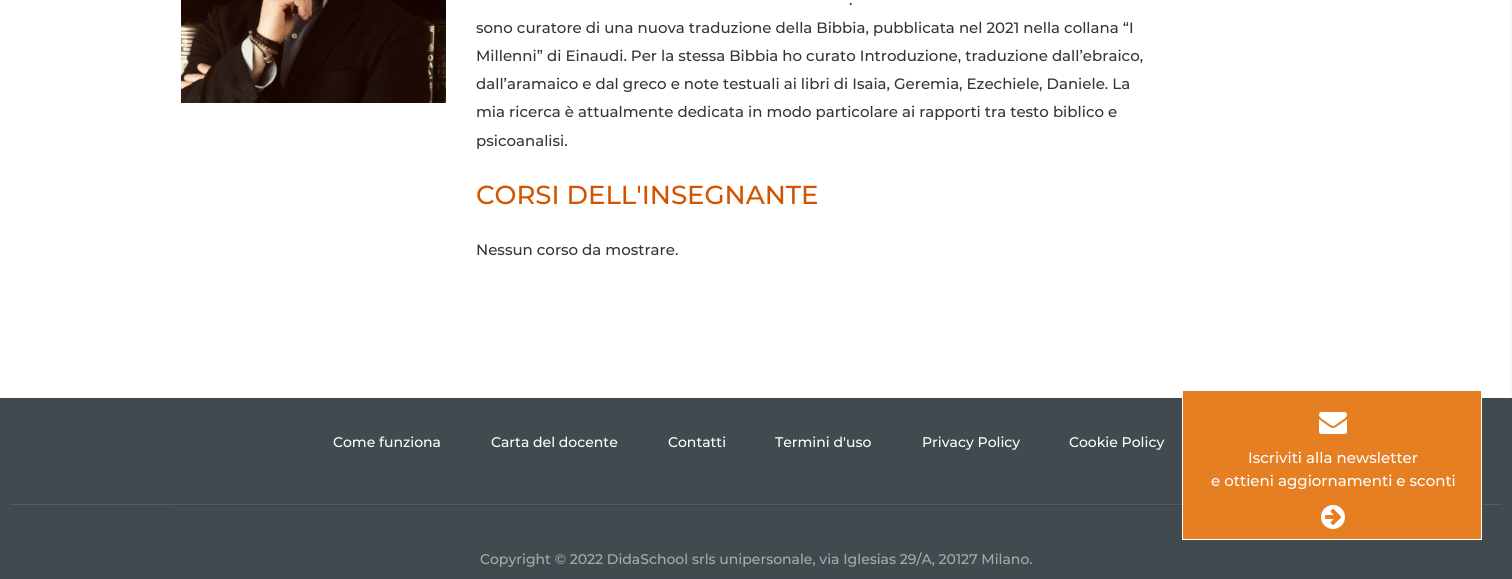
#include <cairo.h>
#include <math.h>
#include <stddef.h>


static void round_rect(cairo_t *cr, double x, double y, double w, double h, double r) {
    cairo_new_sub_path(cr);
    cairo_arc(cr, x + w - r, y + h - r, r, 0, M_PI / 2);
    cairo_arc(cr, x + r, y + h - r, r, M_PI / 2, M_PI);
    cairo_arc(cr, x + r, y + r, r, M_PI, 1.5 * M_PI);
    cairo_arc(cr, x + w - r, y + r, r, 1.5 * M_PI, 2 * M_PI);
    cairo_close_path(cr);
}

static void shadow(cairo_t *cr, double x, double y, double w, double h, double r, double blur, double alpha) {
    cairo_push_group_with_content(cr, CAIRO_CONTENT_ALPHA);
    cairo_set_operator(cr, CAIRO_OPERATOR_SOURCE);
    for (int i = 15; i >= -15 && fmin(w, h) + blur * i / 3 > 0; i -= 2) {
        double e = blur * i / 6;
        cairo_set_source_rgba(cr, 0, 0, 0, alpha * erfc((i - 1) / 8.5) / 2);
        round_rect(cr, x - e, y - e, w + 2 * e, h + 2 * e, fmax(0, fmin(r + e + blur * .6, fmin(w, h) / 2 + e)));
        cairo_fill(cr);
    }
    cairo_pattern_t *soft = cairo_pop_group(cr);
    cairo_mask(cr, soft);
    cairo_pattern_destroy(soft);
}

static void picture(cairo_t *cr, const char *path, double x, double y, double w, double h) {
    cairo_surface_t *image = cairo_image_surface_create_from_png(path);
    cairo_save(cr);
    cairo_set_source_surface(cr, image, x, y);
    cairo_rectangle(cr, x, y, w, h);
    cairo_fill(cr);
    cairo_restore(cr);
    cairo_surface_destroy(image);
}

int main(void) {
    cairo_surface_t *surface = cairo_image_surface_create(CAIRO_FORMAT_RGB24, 1512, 579);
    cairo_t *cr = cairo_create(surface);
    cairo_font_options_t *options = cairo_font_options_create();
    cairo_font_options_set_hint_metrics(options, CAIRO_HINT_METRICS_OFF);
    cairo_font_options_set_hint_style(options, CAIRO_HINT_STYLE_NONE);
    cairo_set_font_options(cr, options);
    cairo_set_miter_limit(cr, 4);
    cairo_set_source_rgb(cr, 1, 1, 1);
    cairo_paint(cr);
    picture(cr, "img1.png", 181, 0, 265, 103);
    cairo_select_font_face(cr, "Montserrat Medium", CAIRO_FONT_SLANT_NORMAL, CAIRO_FONT_WEIGHT_NORMAL);
    cairo_set_font_size(cr, 15);
    cairo_set_source_rgb(cr, 0.22, 0.204, 0.204);
    cairo_move_to(cr, 849, 5);
    cairo_show_text(cr, ".");
    cairo_move_to(cr, 476, 33);
    cairo_show_text(cr, "sono curatore di una nuova traduzione della Bibbia, pubblicata nel 2021 nella collana “I");
    cairo_move_to(cr, 476, 61);
    cairo_show_text(cr, "Millenni” di Einaudi. Per la stessa Bibbia ho curato Introduzione, traduzione dall’ebraico,");
    cairo_move_to(cr, 476, 89);
    cairo_show_text(cr, "dall’aramaico e dal greco e note testuali ai libri di Isaia, Geremia, Ezechiele, Daniele. La");
    cairo_move_to(cr, 476, 117);
    cairo_show_text(cr, "mia ricerca è attualmente dedicata in modo particolare ai rapporti tra testo biblico e");
    cairo_move_to(cr, 476, 146);
    cairo_show_text(cr, "psicoanalisi.");
    cairo_set_font_size(cr, 26);
    cairo_set_source_rgb(cr, 0.827, 0.329, 0);
    cairo_move_to(cr, 476, 204);
    cairo_show_text(cr, "CORSI DELL'INSEGNANTE");
    cairo_set_font_size(cr, 15);
    cairo_set_source_rgb(cr, 0.22, 0.204, 0.204);
    cairo_move_to(cr, 476, 255);
    cairo_show_text(cr, "Nessun corso da mostrare.");
    cairo_set_source_rgb(cr, 0.255, 0.294, 0.31);
    cairo_rectangle(cr, 0, 398, 1512, 181);
    cairo_fill(cr);
    cairo_set_source_rgb(cr, 0.329, 0.365, 0.38);
    cairo_rectangle(cr, 10, 504, 1492, 1);
    cairo_fill(cr);
    cairo_set_source_rgb(cr, 0.902, 0.494, 0.133);
    cairo_rectangle(cr, 1182.5, 390.5, 299, 149);
    cairo_fill_preserve(cr);
    cairo_set_source_rgb(cr, 1, 1, 1);
    cairo_set_line_width(cr, 1);
    cairo_stroke(cr);
    picture(cr, "img2.png", 1319, 412, 28, 22);
    cairo_move_to(cr, 1248, 463);
    cairo_show_text(cr, "Iscriviti alla newsletter");
    cairo_move_to(cr, 1211, 486);
    cairo_show_text(cr, "e ottieni aggiornamenti e sconti");
    picture(cr, "img3.png", 1321, 505, 24, 24);
    cairo_set_font_size(cr, 14);
    cairo_move_to(cr, 333, 447);
    cairo_show_text(cr, "Come funziona");
    cairo_move_to(cr, 491, 447);
    cairo_show_text(cr, "Carta del docente");
    cairo_move_to(cr, 668, 447);
    cairo_show_text(cr, "Contatti");
    cairo_move_to(cr, 775, 447);
    cairo_show_text(cr, "Termini d'uso");
    cairo_move_to(cr, 922, 447);
    cairo_show_text(cr, "Privacy Policy");
    cairo_move_to(cr, 1069, 447);
    cairo_show_text(cr, "Cookie Policy");
    cairo_set_source_rgb(cr, 0, 0, 0);
    shadow(cr, 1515, 0, 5, 579, 0, 2.5, 0.5);
    cairo_set_source_rgb(cr, 0.231, 0.267, 0.278);
    cairo_rectangle(cr, 171, 505, 1011, 1);
    cairo_fill(cr);
    cairo_set_source_rgb(cr, 0.667, 0.667, 0.667);
    cairo_move_to(cr, 480, 564);
    cairo_show_text(cr, "Copyright © 2022 DidaSchool srls unipersonale, via Iglesias 29/A, 20127 Milano.");
    cairo_surface_write_to_png(surface, "page.png");
    cairo_font_options_destroy(options);
    cairo_destroy(cr);
    cairo_surface_destroy(surface);
    return 0;
}
